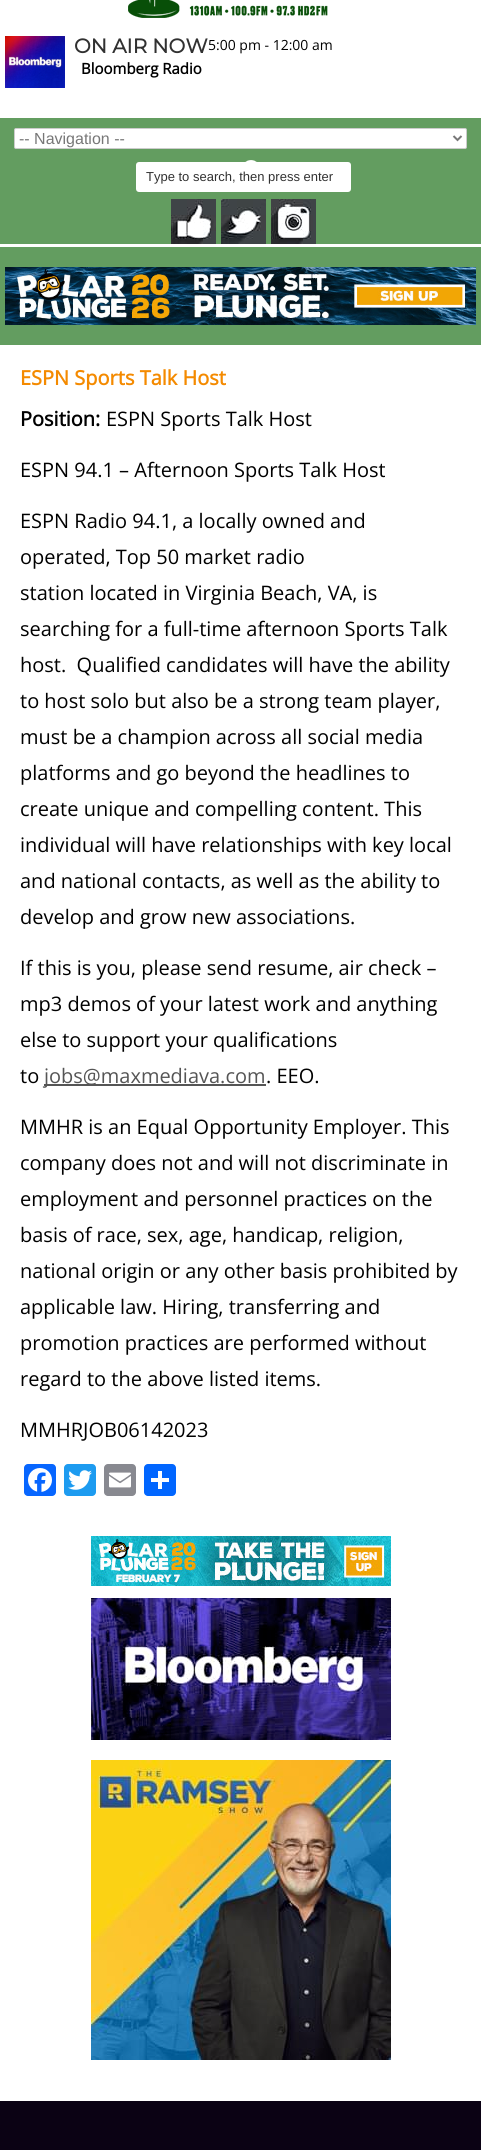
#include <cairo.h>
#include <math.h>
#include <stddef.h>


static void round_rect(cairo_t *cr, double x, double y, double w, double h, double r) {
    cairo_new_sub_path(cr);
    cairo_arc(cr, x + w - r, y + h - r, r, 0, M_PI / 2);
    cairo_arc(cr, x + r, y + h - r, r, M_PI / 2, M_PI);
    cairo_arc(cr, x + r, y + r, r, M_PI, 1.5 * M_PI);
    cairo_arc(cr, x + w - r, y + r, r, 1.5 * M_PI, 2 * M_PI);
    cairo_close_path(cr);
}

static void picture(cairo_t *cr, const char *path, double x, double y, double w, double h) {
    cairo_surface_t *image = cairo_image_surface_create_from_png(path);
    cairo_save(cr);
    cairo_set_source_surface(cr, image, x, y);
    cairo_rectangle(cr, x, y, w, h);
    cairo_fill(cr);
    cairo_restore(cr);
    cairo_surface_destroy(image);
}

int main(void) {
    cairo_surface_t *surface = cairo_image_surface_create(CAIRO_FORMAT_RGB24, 481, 2150);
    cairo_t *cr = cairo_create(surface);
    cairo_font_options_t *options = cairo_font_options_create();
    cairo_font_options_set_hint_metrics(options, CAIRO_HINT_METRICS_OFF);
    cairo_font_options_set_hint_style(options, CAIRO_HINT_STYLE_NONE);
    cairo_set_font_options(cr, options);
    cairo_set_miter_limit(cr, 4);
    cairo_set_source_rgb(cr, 0.388, 0.616, 0.376);
    cairo_paint(cr);
    cairo_set_source_rgb(cr, 1, 1, 1);
    cairo_rectangle(cr, 0, 0, 481, 118);
    cairo_fill(cr);
    picture(cr, "img1.png", 128, 0, 200, 18);
    picture(cr, "img2.png", 5, 36, 60, 52);
    cairo_select_font_face(cr, "Montserrat", CAIRO_FONT_SLANT_NORMAL, CAIRO_FONT_WEIGHT_BOLD);
    cairo_set_font_size(cr, 20);
    cairo_set_source_rgb(cr, 0.192, 0.192, 0.192);
    cairo_move_to(cr, 74, 53);
    cairo_show_text(cr, "ON AIR NOW");
    cairo_select_font_face(cr, "Open Sans", CAIRO_FONT_SLANT_NORMAL, CAIRO_FONT_WEIGHT_BOLD);
    cairo_set_font_size(cr, 15);
    cairo_set_source_rgb(cr, 0, 0, 0);
    cairo_move_to(cr, 81, 74);
    cairo_show_text(cr, "Bloomberg Radio");
    cairo_select_font_face(cr, "Open Sans", CAIRO_FONT_SLANT_NORMAL, CAIRO_FONT_WEIGHT_NORMAL);
    cairo_set_font_size(cr, 14);
    cairo_move_to(cr, 208, 50);
    cairo_show_text(cr, "5:00 pm - 12:00 am");
    cairo_set_source_rgb(cr, 1, 1, 1);
    cairo_rectangle(cr, 0, 244, 481, 3);
    cairo_fill(cr);
    round_rect(cr, 14.5, 128.5, 452, 20, 1.5);
    cairo_fill_preserve(cr);
    cairo_set_source_rgb(cr, 0.8, 0.8, 0.8);
    cairo_set_line_width(cr, 1);
    cairo_stroke(cr);
    cairo_new_path(cr);
    cairo_move_to(cr, 453.5, 136);
    cairo_line_to(cr, 457.5, 140);
    cairo_line_to(cr, 461.5, 136);
    cairo_set_source_rgb(cr, 0.467, 0.467, 0.467);
    cairo_set_line_width(cr, 2);
    cairo_stroke(cr);
    cairo_select_font_face(cr, "Liberation Sans", CAIRO_FONT_SLANT_NORMAL, CAIRO_FONT_WEIGHT_NORMAL);
    cairo_set_font_size(cr, 16);
    cairo_move_to(cr, 19, 144);
    cairo_show_text(cr, "-- Navigation --");
    picture(cr, "img3.png", 245, 160, 12, 2);
    cairo_set_source_rgb(cr, 1, 1, 1);
    round_rect(cr, 136, 162, 215, 30, 3);
    cairo_fill(cr);
    cairo_set_font_size(cr, 13);
    cairo_set_source_rgb(cr, 0.192, 0.192, 0.192);
    cairo_move_to(cr, 146, 181);
    cairo_show_text(cr, "Type to search, then press enter");
    picture(cr, "img4.png", 171, 199, 45, 45);
    picture(cr, "img5.png", 221, 199, 45, 45);
    picture(cr, "img6.png", 271, 199, 45, 45);
    picture(cr, "img7.png", 5, 267, 471, 58);
    cairo_set_source_rgb(cr, 1, 1, 1);
    cairo_rectangle(cr, 0, 345, 481, 1756);
    cairo_fill(cr);
    cairo_select_font_face(cr, "Open Sans", CAIRO_FONT_SLANT_NORMAL, CAIRO_FONT_WEIGHT_BOLD);
    cairo_set_font_size(cr, 20);
    cairo_set_source_rgb(cr, 0.957, 0.541, 0);
    cairo_move_to(cr, 20, 385);
    cairo_show_text(cr, "ESPN Sports Talk Host");
    cairo_set_source_rgb(cr, 0, 0, 0);
    cairo_move_to(cr, 20, 426);
    cairo_show_text(cr, "Position:");
    cairo_select_font_face(cr, "Open Sans", CAIRO_FONT_SLANT_NORMAL, CAIRO_FONT_WEIGHT_NORMAL);
    cairo_move_to(cr, 106, 426);
    cairo_show_text(cr, "ESPN Sports Talk Host");
    cairo_move_to(cr, 20, 477);
    cairo_show_text(cr, "ESPN 94.1 – Afternoon Sports Talk Host");
    cairo_move_to(cr, 20, 528);
    cairo_show_text(cr, "ESPN Radio 94.1, a locally owned and");
    cairo_move_to(cr, 20, 564);
    cairo_show_text(cr, "operated, Top 50 market radio");
    cairo_move_to(cr, 20, 600);
    cairo_show_text(cr, "station located in Virginia Beach, VA, is");
    cairo_move_to(cr, 20, 636);
    cairo_show_text(cr, "searching for a full-time afternoon Sports Talk");
    cairo_move_to(cr, 20, 672);
    cairo_show_text(cr, "host.  Qualified candidates will have the ability");
    cairo_move_to(cr, 20, 708);
    cairo_show_text(cr, "to host solo but also be a strong team player,");
    cairo_move_to(cr, 20, 744);
    cairo_show_text(cr, "must be a champion across all social media");
    cairo_move_to(cr, 20, 780);
    cairo_show_text(cr, "platforms and go beyond the headlines to");
    cairo_move_to(cr, 20, 816);
    cairo_show_text(cr, "create unique and compelling content. This");
    cairo_move_to(cr, 20, 852);
    cairo_show_text(cr, "individual will have relationships with key local");
    cairo_move_to(cr, 20, 888);
    cairo_show_text(cr, "and national contacts, as well as the ability to");
    cairo_move_to(cr, 20, 924);
    cairo_show_text(cr, "develop and grow new associations.");
    cairo_move_to(cr, 20, 975);
    cairo_show_text(cr, "If this is you, please send resume, air check –");
    cairo_move_to(cr, 20, 1011);
    cairo_show_text(cr, "mp3 demos of your latest work and anything");
    cairo_move_to(cr, 20, 1047);
    cairo_show_text(cr, "else to support your qualifications");
    cairo_move_to(cr, 20, 1083);
    cairo_show_text(cr, "to");
    cairo_set_source_rgb(cr, 0.333, 0.333, 0.333);
    cairo_rectangle(cr, 44, 1084, 222, 2);
    cairo_fill(cr);
    cairo_move_to(cr, 44, 1083);
    cairo_show_text(cr, "jobs@maxmediava.com");
    cairo_set_source_rgb(cr, 0, 0, 0);
    cairo_move_to(cr, 266, 1083);
    cairo_show_text(cr, ". EEO.");
    cairo_move_to(cr, 20, 1134);
    cairo_show_text(cr, "MMHR is an Equal Opportunity Employer. This");
    cairo_move_to(cr, 20, 1170);
    cairo_show_text(cr, "company does not and will not discriminate in");
    cairo_move_to(cr, 20, 1206);
    cairo_show_text(cr, "employment and personnel practices on the");
    cairo_move_to(cr, 20, 1242);
    cairo_show_text(cr, "basis of race, sex, age, handicap, religion,");
    cairo_move_to(cr, 20, 1278);
    cairo_show_text(cr, "national origin or any other basis prohibited by");
    cairo_move_to(cr, 20, 1314);
    cairo_show_text(cr, "applicable law. Hiring, transferring and");
    cairo_move_to(cr, 20, 1350);
    cairo_show_text(cr, "promotion practices are performed without");
    cairo_move_to(cr, 20, 1386);
    cairo_show_text(cr, "regard to the above listed items.");
    cairo_move_to(cr, 20, 1437);
    cairo_show_text(cr, "MMHRJOB06142023");
    cairo_set_source_rgb(cr, 0.031, 0.4, 1);
    round_rect(cr, 24, 1464, 32, 32, 4);
    cairo_fill(cr);
    picture(cr, "img8.png", 28, 1468, 24, 24);
    cairo_set_source_rgb(cr, 0.114, 0.608, 0.941);
    round_rect(cr, 64, 1464, 32, 32, 4);
    cairo_fill(cr);
    picture(cr, "img9.png", 68, 1470, 24, 20);
    cairo_set_source_rgb(cr, 0.533, 0.537, 0.565);
    round_rect(cr, 104, 1464, 32, 32, 4);
    cairo_fill(cr);
    picture(cr, "img10.png", 109, 1472, 22, 16);
    cairo_set_source_rgb(cr, 0.004, 0.4, 1);
    round_rect(cr, 144, 1464, 32, 32, 4);
    cairo_fill(cr);
    cairo_set_source_rgb(cr, 1, 1, 1);
    cairo_rectangle(cr, 158, 1471, 4, 18);
    cairo_fill(cr);
    cairo_rectangle(cr, 151, 1478, 18, 4);
    cairo_fill(cr);
    picture(cr, "img11.png", 91, 1536, 300, 50);
    picture(cr, "img12.png", 91, 1598, 300, 142);
    picture(cr, "img13.png", 91, 1760, 300, 300);
    cairo_set_source_rgb(cr, 0.043, 0.008, 0.082);
    cairo_rectangle(cr, 0, 2101, 481, 49);
    cairo_fill(cr);
    cairo_surface_write_to_png(surface, "page.png");
    cairo_font_options_destroy(options);
    cairo_destroy(cr);
    cairo_surface_destroy(surface);
    return 0;
}
